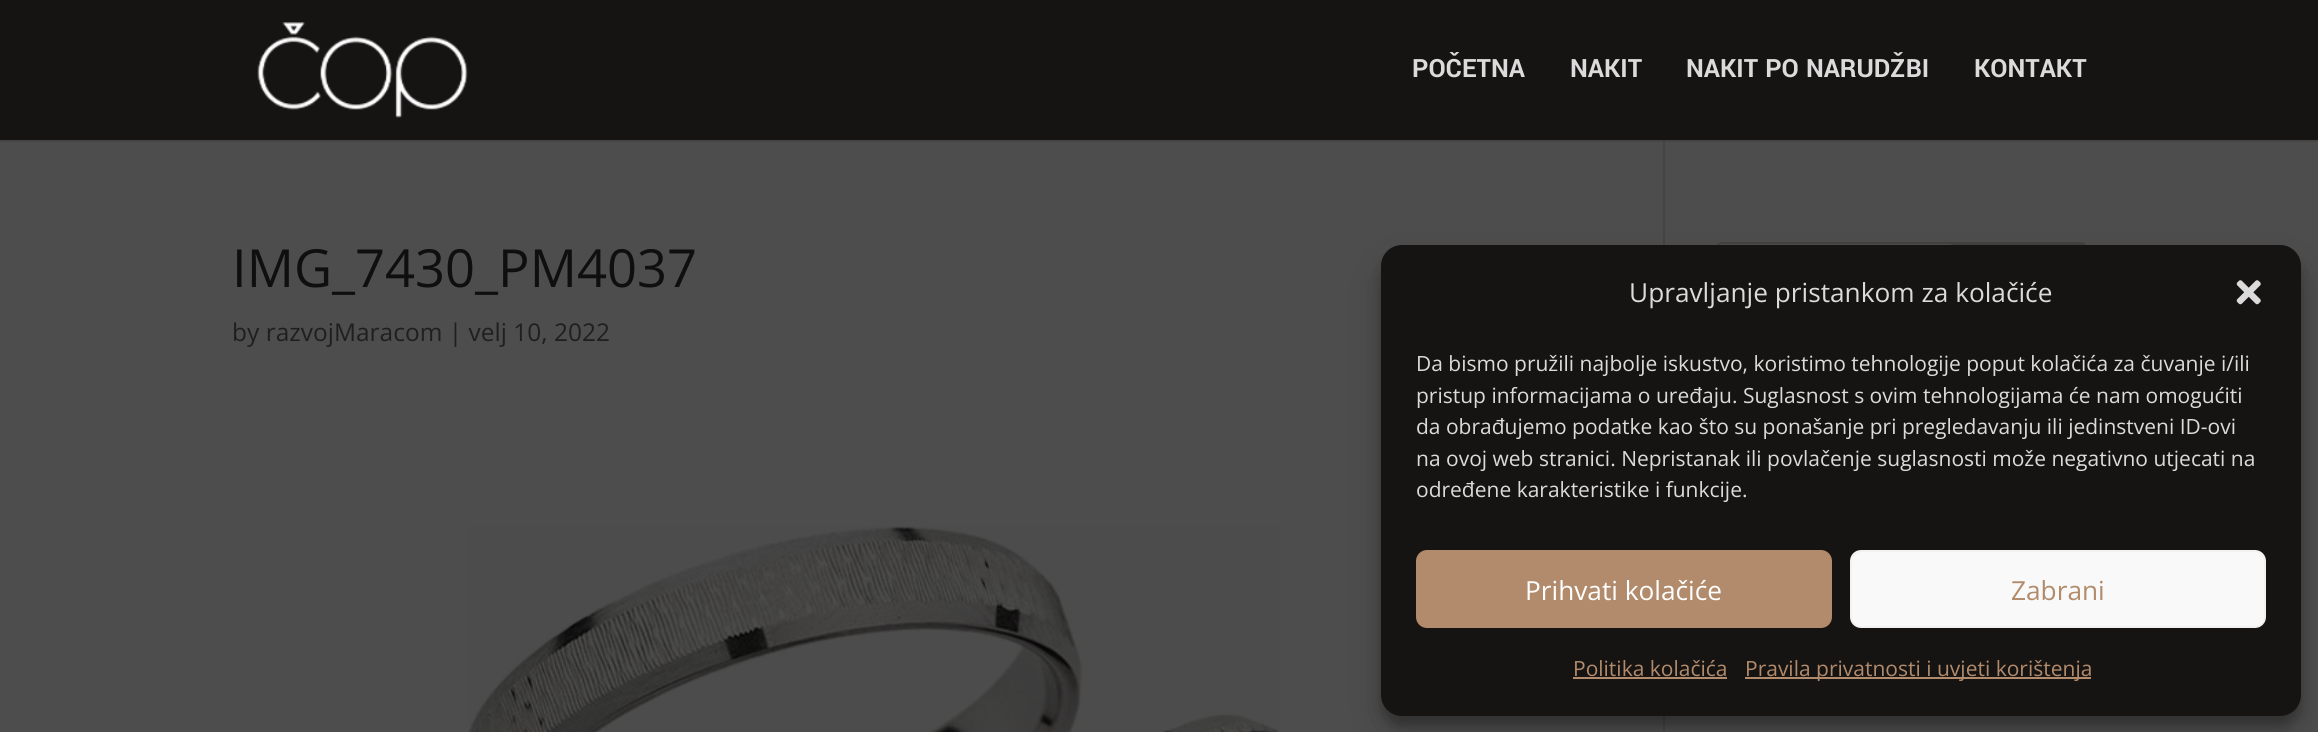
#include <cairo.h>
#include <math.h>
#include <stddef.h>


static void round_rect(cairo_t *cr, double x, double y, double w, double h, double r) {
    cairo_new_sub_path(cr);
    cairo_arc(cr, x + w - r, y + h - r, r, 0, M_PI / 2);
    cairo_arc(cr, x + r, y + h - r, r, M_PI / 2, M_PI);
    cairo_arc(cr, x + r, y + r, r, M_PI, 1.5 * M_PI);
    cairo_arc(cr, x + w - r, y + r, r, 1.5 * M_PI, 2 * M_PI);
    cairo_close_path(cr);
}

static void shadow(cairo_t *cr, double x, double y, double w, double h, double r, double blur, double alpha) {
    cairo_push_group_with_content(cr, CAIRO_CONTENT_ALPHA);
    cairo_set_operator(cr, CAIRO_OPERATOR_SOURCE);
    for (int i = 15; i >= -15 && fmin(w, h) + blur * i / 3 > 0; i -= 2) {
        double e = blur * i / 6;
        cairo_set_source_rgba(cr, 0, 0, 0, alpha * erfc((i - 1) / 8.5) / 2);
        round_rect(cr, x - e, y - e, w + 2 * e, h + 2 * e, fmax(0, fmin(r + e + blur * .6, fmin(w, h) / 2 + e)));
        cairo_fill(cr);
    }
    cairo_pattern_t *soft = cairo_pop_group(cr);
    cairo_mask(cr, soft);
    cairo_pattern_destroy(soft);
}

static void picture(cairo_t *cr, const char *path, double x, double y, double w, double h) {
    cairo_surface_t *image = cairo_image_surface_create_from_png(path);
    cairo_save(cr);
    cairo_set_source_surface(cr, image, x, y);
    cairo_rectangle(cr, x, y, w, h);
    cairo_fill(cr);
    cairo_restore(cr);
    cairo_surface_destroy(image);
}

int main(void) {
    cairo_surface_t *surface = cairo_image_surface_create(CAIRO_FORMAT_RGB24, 2318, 732);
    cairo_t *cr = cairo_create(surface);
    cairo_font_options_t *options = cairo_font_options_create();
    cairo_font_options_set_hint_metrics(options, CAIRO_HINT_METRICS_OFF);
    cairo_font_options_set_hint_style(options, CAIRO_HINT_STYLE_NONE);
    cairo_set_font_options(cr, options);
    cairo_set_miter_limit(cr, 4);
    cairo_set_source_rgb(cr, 0.302, 0.302, 0.302);
    cairo_paint(cr);
    cairo_set_source_rgb(cr, 0.267, 0.267, 0.267);
    cairo_rectangle(cr, 1663, 140, 2, 592);
    cairo_fill(cr);
    cairo_set_source_rgba(cr, 0, 0, 0, 0.1);
    cairo_new_path(cr);
    cairo_move_to(cr, 0, 140);
    cairo_line_to(cr, 0, 142);
    cairo_line_to(cr, 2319, 142);
    cairo_line_to(cr, 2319, 2);
    cairo_line_to(cr, 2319, 140);
    cairo_close_path(cr);
    cairo_fill(cr);
    cairo_set_source_rgb(cr, 0.086, 0.078, 0.078);
    cairo_rectangle(cr, 0, 0, 2318, 140);
    cairo_fill(cr);
    picture(cr, "img1.png", 257, 22, 211, 96);
    cairo_select_font_face(cr, "Yantramanav", CAIRO_FONT_SLANT_NORMAL, CAIRO_FONT_WEIGHT_BOLD);
    cairo_set_font_size(cr, 28);
    cairo_set_source_rgb(cr, 0.859, 0.859, 0.859);
    cairo_move_to(cr, 1412, 77);
    cairo_show_text(cr, "POČETNA");
    cairo_move_to(cr, 1570, 77);
    cairo_show_text(cr, "NAKIT");
    cairo_move_to(cr, 1686, 77);
    cairo_show_text(cr, "NAKIT PO NARUDŽBI");
    cairo_move_to(cr, 1974, 77);
    cairo_show_text(cr, "KONTAKT");
    cairo_select_font_face(cr, "Open Sans", CAIRO_FONT_SLANT_NORMAL, CAIRO_FONT_WEIGHT_NORMAL);
    cairo_set_font_size(cr, 52.5);
    cairo_set_source_rgb(cr, 0.059, 0.059, 0.059);
    cairo_move_to(cr, 232, 287);
    cairo_show_text(cr, "IMG_7430_PM4037");
    cairo_set_font_size(cr, 24.5);
    cairo_set_source_rgb(cr, 0.122, 0.122, 0.122);
    cairo_move_to(cr, 232, 341);
    cairo_show_text(cr, "by razvojMaracom | velj 10, 2022");
    picture(cr, "img2.png", 468, 526, 812, 206);
    round_rect(cr, 1718, 243, 367, 68, 4);
    cairo_set_source_rgb(cr, 0.259, 0.259, 0.259);
    cairo_stroke(cr);
    cairo_new_path(cr);
    cairo_move_to(cr, 1951, 242);
    cairo_line_to(cr, 2081, 242);
    cairo_curve_to(cr, 2084, 242, 2086, 244, 2086, 247);
    cairo_line_to(cr, 2086, 307);
    cairo_curve_to(cr, 2086, 310, 2084, 312, 2081, 312);
    cairo_line_to(cr, 1951, 312);
    cairo_close_path(cr);
    cairo_fill(cr);
    cairo_set_source_rgb(cr, 0, 0, 0);
    shadow(cr, 1381, 256, 920, 470, 21, 5, 0.23);
    shadow(cr, 1381, 263, 920, 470, 21, 17.5, 0.19);
    cairo_set_source_rgb(cr, 0.086, 0.078, 0.078);
    round_rect(cr, 1381, 245, 920, 471, 21);
    cairo_fill(cr);
    cairo_set_font_size(cr, 26.25);
    cairo_set_source_rgb(cr, 0.859, 0.859, 0.859);
    cairo_move_to(cr, 1629, 302);
    cairo_show_text(cr, "Upravljanje pristankom za kolačiće");
    picture(cr, "img3.png", 2236, 280, 25, 25);
    cairo_set_font_size(cr, 21);
    cairo_move_to(cr, 1416, 371);
    cairo_show_text(cr, "Da bismo pružili najbolje iskustvo, koristimo tehnologije poput kolačića za čuvanje i/ili");
    cairo_move_to(cr, 1416, 403);
    cairo_show_text(cr, "pristup informacijama o uređaju. Suglasnost s ovim tehnologijama će nam omogućiti");
    cairo_move_to(cr, 1416, 434);
    cairo_show_text(cr, "da obrađujemo podatke kao što su ponašanje pri pregledavanju ili jedinstveni ID-ovi");
    cairo_move_to(cr, 1416, 466);
    cairo_show_text(cr, "na ovoj web stranici. Nepristanak ili povlačenje suglasnosti može negativno utjecati na");
    cairo_move_to(cr, 1416, 497);
    cairo_show_text(cr, "određene karakteristike i funkcije.");
    cairo_set_source_rgb(cr, 0.694, 0.545, 0.42);
    round_rect(cr, 1417, 551, 414, 76, 10);
    cairo_fill_preserve(cr);
    cairo_stroke(cr);
    cairo_set_font_size(cr, 26.25);
    cairo_set_source_rgb(cr, 1, 1, 1);
    cairo_move_to(cr, 1525, 600);
    cairo_show_text(cr, "Prihvati kolačiće");
    cairo_set_source_rgb(cr, 0.976, 0.976, 0.976);
    round_rect(cr, 1851, 551, 414, 76, 10);
    cairo_fill_preserve(cr);
    cairo_set_source_rgb(cr, 0.949, 0.949, 0.949);
    cairo_stroke(cr);
    cairo_set_source_rgb(cr, 0.694, 0.545, 0.42);
    cairo_move_to(cr, 2011, 600);
    cairo_show_text(cr, "Zabrani");
    cairo_set_font_size(cr, 21);
    cairo_move_to(cr, 1573, 676);
    cairo_show_text(cr, "Politika kolačića");
    cairo_rectangle(cr, 1573, 677, 154, 2);
    cairo_fill(cr);
    cairo_rectangle(cr, 1745, 677, 346, 2);
    cairo_fill(cr);
    cairo_move_to(cr, 1745, 676);
    cairo_show_text(cr, "Pravila privatnosti i uvjeti korištenja");
    cairo_surface_write_to_png(surface, "page.png");
    cairo_font_options_destroy(options);
    cairo_destroy(cr);
    cairo_surface_destroy(surface);
    return 0;
}
